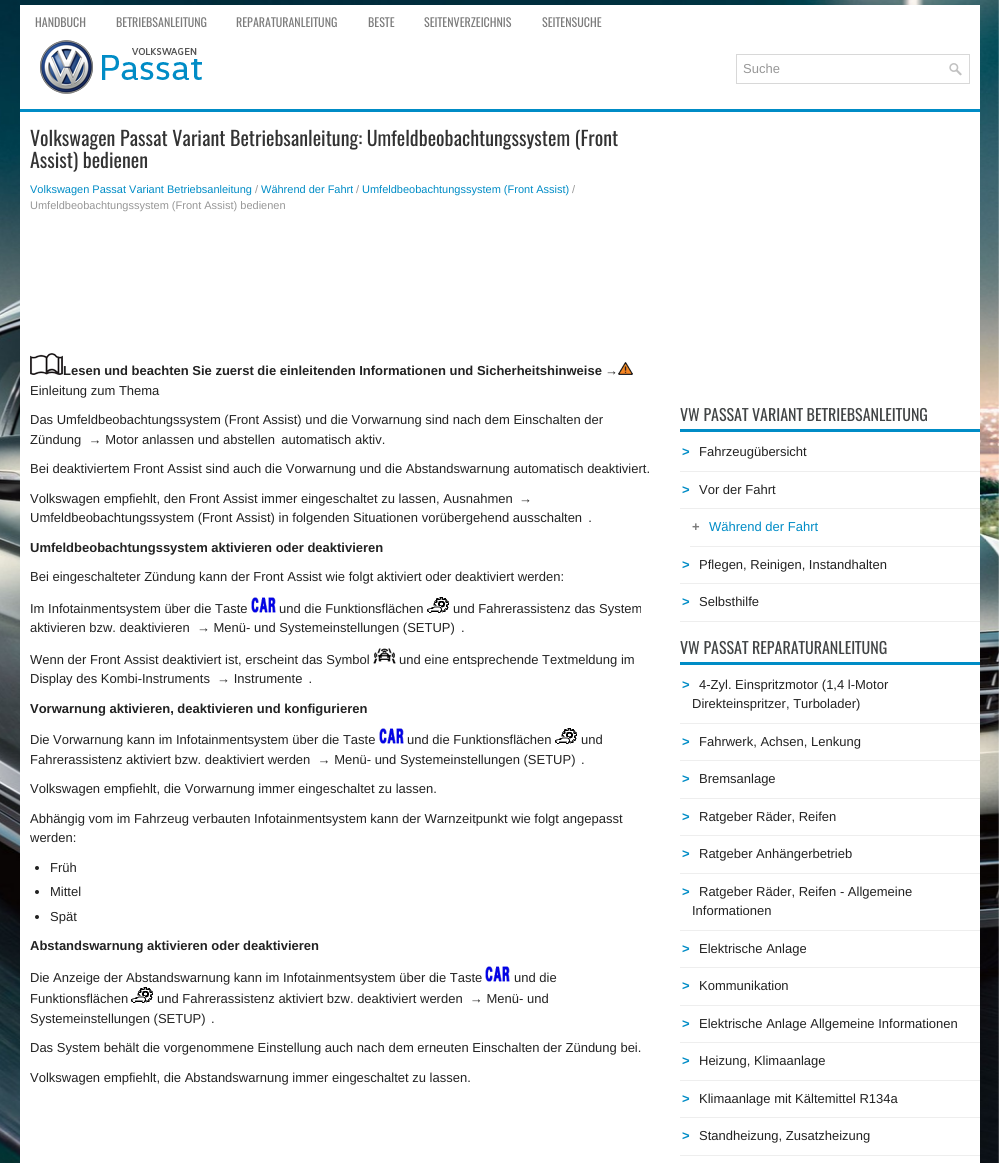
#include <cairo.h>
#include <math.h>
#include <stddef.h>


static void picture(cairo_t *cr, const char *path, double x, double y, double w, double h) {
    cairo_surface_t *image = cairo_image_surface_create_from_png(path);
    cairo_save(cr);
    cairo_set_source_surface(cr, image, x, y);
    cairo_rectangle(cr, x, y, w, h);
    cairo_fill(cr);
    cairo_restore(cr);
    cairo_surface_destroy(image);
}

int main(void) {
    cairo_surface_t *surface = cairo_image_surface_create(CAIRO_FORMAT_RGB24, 999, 1163);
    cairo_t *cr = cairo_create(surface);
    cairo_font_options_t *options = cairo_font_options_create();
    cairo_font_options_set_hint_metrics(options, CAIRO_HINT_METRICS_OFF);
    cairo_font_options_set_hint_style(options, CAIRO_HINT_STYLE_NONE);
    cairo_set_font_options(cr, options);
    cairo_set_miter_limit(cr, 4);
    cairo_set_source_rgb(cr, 1, 1, 1);
    cairo_paint(cr);
    picture(cr, "img1.png", 0, 0, 999, 1163);
    cairo_set_source_rgb(cr, 1, 1, 1);
    cairo_rectangle(cr, 20, 5, 960, 1158);
    cairo_fill(cr);
    cairo_select_font_face(cr, "Oswald", CAIRO_FONT_SLANT_NORMAL, CAIRO_FONT_WEIGHT_NORMAL);
    cairo_set_font_size(cr, 12);
    cairo_set_source_rgb(cr, 0.482, 0.482, 0.482);
    cairo_move_to(cr, 35, 27);
    cairo_show_text(cr, "HANDBUCH");
    cairo_move_to(cr, 116, 27);
    cairo_show_text(cr, "BETRIEBSANLEITUNG");
    cairo_move_to(cr, 236, 27);
    cairo_show_text(cr, "REPARATURANLEITUNG");
    cairo_move_to(cr, 368, 27);
    cairo_show_text(cr, "BESTE");
    cairo_move_to(cr, 424, 27);
    cairo_show_text(cr, "SEITENVERZEICHNIS");
    cairo_move_to(cr, 542, 27);
    cairo_show_text(cr, "SEITENSUCHE");
    cairo_set_source_rgb(cr, 0, 0.549, 0.776);
    cairo_rectangle(cr, 20, 109, 960, 3);
    cairo_fill(cr);
    picture(cr, "img2.png", 40, 40, 162, 54);
    cairo_rectangle(cr, 736.5, 54.5, 233, 29);
    cairo_set_source_rgb(cr, 0.847, 0.847, 0.847);
    cairo_set_line_width(cr, 1);
    cairo_stroke(cr);
    cairo_select_font_face(cr, "Liberation Sans", CAIRO_FONT_SLANT_NORMAL, CAIRO_FONT_WEIGHT_NORMAL);
    cairo_set_font_size(cr, 13);
    cairo_set_source_rgb(cr, 0.592, 0.592, 0.592);
    cairo_move_to(cr, 743, 73);
    cairo_show_text(cr, "Suche");
    picture(cr, "img3.png", 949, 63, 13, 13);
    cairo_select_font_face(cr, "Oswald", CAIRO_FONT_SLANT_NORMAL, CAIRO_FONT_WEIGHT_NORMAL);
    cairo_set_font_size(cr, 20);
    cairo_set_source_rgb(cr, 0.2, 0.2, 0.2);
    cairo_move_to(cr, 30, 146);
    cairo_show_text(cr, "Volkswagen Passat Variant Betriebsanleitung: Umfeldbeobachtungssystem (Front");
    cairo_move_to(cr, 30, 168);
    cairo_show_text(cr, "Assist) bedienen");
    cairo_select_font_face(cr, "Liberation Sans", CAIRO_FONT_SLANT_NORMAL, CAIRO_FONT_WEIGHT_NORMAL);
    cairo_set_font_size(cr, 11);
    cairo_set_source_rgb(cr, 0, 0.549, 0.776);
    cairo_move_to(cr, 30, 193);
    cairo_show_text(cr, "Volkswagen Passat Variant Betriebsanleitung");
    cairo_set_source_rgb(cr, 0.592, 0.592, 0.592);
    cairo_move_to(cr, 255, 193);
    cairo_show_text(cr, "/");
    cairo_set_source_rgb(cr, 0, 0.549, 0.776);
    cairo_move_to(cr, 261, 193);
    cairo_show_text(cr, "Während der Fahrt");
    cairo_set_source_rgb(cr, 0.592, 0.592, 0.592);
    cairo_move_to(cr, 356, 193);
    cairo_show_text(cr, "/");
    cairo_set_source_rgb(cr, 0, 0.549, 0.776);
    cairo_move_to(cr, 362, 193);
    cairo_show_text(cr, "Umfeldbeobachtungssystem (Front Assist)");
    cairo_set_source_rgb(cr, 0.592, 0.592, 0.592);
    cairo_move_to(cr, 572, 193);
    cairo_show_text(cr, "/");
    cairo_move_to(cr, 30, 209);
    cairo_show_text(cr, "Umfeldbeobachtungssystem (Front Assist) bedienen");
    picture(cr, "img4.png", 30, 353, 33, 22);
    cairo_select_font_face(cr, "Liberation Sans", CAIRO_FONT_SLANT_NORMAL, CAIRO_FONT_WEIGHT_BOLD);
    cairo_set_font_size(cr, 13);
    cairo_set_source_rgb(cr, 0.133, 0.133, 0.133);
    cairo_move_to(cr, 63, 375);
    cairo_show_text(cr, "Lesen und beachten Sie zuerst die einleitenden Informationen und Sicherheitshinweise");
    cairo_select_font_face(cr, "Liberation Sans", CAIRO_FONT_SLANT_NORMAL, CAIRO_FONT_WEIGHT_NORMAL);
    cairo_move_to(cr, 605, 375);
    cairo_show_text(cr, "→");
    picture(cr, "img5.png", 618, 362, 15, 13);
    cairo_move_to(cr, 30, 395);
    cairo_show_text(cr, "Einleitung zum Thema");
    cairo_move_to(cr, 30, 424);
    cairo_show_text(cr, "Das Umfeldbeobachtungssystem (Front Assist) und die Vorwarnung sind nach dem Einschalten der");
    cairo_move_to(cr, 30, 444);
    cairo_show_text(cr, "Zündung  → Motor anlassen und abstellen  automatisch aktiv.");
    cairo_move_to(cr, 30, 473);
    cairo_show_text(cr, "Bei deaktiviertem Front Assist sind auch die Vorwarnung und die Abstandswarnung automatisch deaktiviert.");
    cairo_move_to(cr, 30, 503);
    cairo_show_text(cr, "Volkswagen empfiehlt, den Front Assist immer eingeschaltet zu lassen, Ausnahmen");
    cairo_move_to(cr, 519, 503);
    cairo_show_text(cr, "→");
    cairo_move_to(cr, 30, 522);
    cairo_show_text(cr, "Umfeldbeobachtungssystem (Front Assist) in folgenden Situationen vorübergehend ausschalten  .");
    cairo_select_font_face(cr, "Liberation Sans", CAIRO_FONT_SLANT_NORMAL, CAIRO_FONT_WEIGHT_BOLD);
    cairo_move_to(cr, 30, 552);
    cairo_show_text(cr, "Umfeldbeobachtungssystem aktivieren oder deaktivieren");
    cairo_select_font_face(cr, "Liberation Sans", CAIRO_FONT_SLANT_NORMAL, CAIRO_FONT_WEIGHT_NORMAL);
    cairo_move_to(cr, 30, 581);
    cairo_show_text(cr, "Bei eingeschalteter Zündung kann der Front Assist wie folgt aktiviert oder deaktiviert werden:");
    cairo_move_to(cr, 30, 613);
    cairo_show_text(cr, "Im Infotainmentsystem über die Taste");
    picture(cr, "img6.png", 251, 597, 8, 16);
    picture(cr, "img7.png", 259, 597, 9, 16);
    picture(cr, "img8.png", 268, 597, 8, 16);
    cairo_move_to(cr, 279, 613);
    cairo_show_text(cr, "und die Funktionsflächen");
    picture(cr, "img9.png", 427, 597, 22, 16);
    cairo_move_to(cr, 453, 613);
    cairo_show_text(cr, "und Fahrerassistenz das System");
    cairo_move_to(cr, 30, 632);
    cairo_show_text(cr, "aktivieren bzw. deaktivieren  → Menü- und Systemeinstellungen (SETUP)");
    cairo_move_to(cr, 461, 632);
    cairo_show_text(cr, ".");
    cairo_move_to(cr, 30, 664);
    cairo_show_text(cr, "Wenn der Front Assist deaktiviert ist, erscheint das Symbol");
    picture(cr, "img10.png", 373, 648, 23, 16);
    cairo_move_to(cr, 399, 664);
    cairo_show_text(cr, "und eine entsprechende Textmeldung im");
    cairo_move_to(cr, 30, 683);
    cairo_show_text(cr, "Display des Kombi-Instruments  → Instrumente  .");
    cairo_select_font_face(cr, "Liberation Sans", CAIRO_FONT_SLANT_NORMAL, CAIRO_FONT_WEIGHT_BOLD);
    cairo_move_to(cr, 30, 713);
    cairo_show_text(cr, "Vorwarnung aktivieren, deaktivieren und konfigurieren");
    cairo_select_font_face(cr, "Liberation Sans", CAIRO_FONT_SLANT_NORMAL, CAIRO_FONT_WEIGHT_NORMAL);
    cairo_move_to(cr, 30, 744);
    cairo_show_text(cr, "Die Vorwarnung kann im Infotainmentsystem über die Taste");
    picture(cr, "img6.png", 379, 728, 8, 16);
    picture(cr, "img7.png", 387, 728, 9, 16);
    picture(cr, "img8.png", 396, 728, 8, 16);
    cairo_move_to(cr, 407, 744);
    cairo_show_text(cr, "und die Funktionsflächen");
    picture(cr, "img9.png", 555, 728, 22, 16);
    cairo_move_to(cr, 581, 744);
    cairo_show_text(cr, "und");
    cairo_move_to(cr, 30, 764);
    cairo_show_text(cr, "Fahrerassistenz aktiviert bzw. deaktiviert werden  → Menü- und Systemeinstellungen (SETUP)");
    cairo_move_to(cr, 581, 764);
    cairo_show_text(cr, ".");
    cairo_move_to(cr, 30, 793);
    cairo_show_text(cr, "Volkswagen empfiehlt, die Vorwarnung immer eingeschaltet zu lassen.");
    cairo_move_to(cr, 30, 823);
    cairo_show_text(cr, "Abhängig vom im Fahrzeug verbauten Infotainmentsystem kann der Warnzeitpunkt wie folgt angepasst");
    cairo_move_to(cr, 30, 842);
    cairo_show_text(cr, "werden:");
    cairo_new_path(cr);
    cairo_arc(cr, 37, 868, 2, 0, 2 * M_PI);
    cairo_fill(cr);
    cairo_move_to(cr, 50, 872);
    cairo_show_text(cr, "Früh");
    cairo_new_path(cr);
    cairo_arc(cr, 37, 892, 2, 0, 2 * M_PI);
    cairo_fill(cr);
    cairo_move_to(cr, 50, 896);
    cairo_show_text(cr, "Mittel");
    cairo_new_path(cr);
    cairo_arc(cr, 37, 917, 2, 0, 2 * M_PI);
    cairo_fill(cr);
    cairo_move_to(cr, 50, 921);
    cairo_show_text(cr, "Spät");
    cairo_select_font_face(cr, "Liberation Sans", CAIRO_FONT_SLANT_NORMAL, CAIRO_FONT_WEIGHT_BOLD);
    cairo_move_to(cr, 30, 950);
    cairo_show_text(cr, "Abstandswarnung aktivieren oder deaktivieren");
    cairo_select_font_face(cr, "Liberation Sans", CAIRO_FONT_SLANT_NORMAL, CAIRO_FONT_WEIGHT_NORMAL);
    cairo_move_to(cr, 30, 982);
    cairo_show_text(cr, "Die Anzeige der Abstandswarnung kann im Infotainmentsystem über die Taste");
    picture(cr, "img6.png", 485, 966, 8, 16);
    picture(cr, "img7.png", 493, 966, 9, 16);
    picture(cr, "img8.png", 502, 966, 8, 16);
    cairo_move_to(cr, 514, 982);
    cairo_show_text(cr, "und die");
    cairo_move_to(cr, 30, 1003);
    cairo_show_text(cr, "Funktionsflächen");
    picture(cr, "img9.png", 131, 987, 22, 16);
    cairo_move_to(cr, 157, 1003);
    cairo_show_text(cr, "und Fahrerassistenz aktiviert bzw. deaktiviert werden  → Menü- und");
    cairo_move_to(cr, 30, 1023);
    cairo_show_text(cr, "Systemeinstellungen (SETUP)");
    cairo_move_to(cr, 211, 1023);
    cairo_show_text(cr, ".");
    cairo_move_to(cr, 30, 1052);
    cairo_show_text(cr, "Das System behält die vorgenommene Einstellung auch nach dem erneuten Einschalten der Zündung bei.");
    cairo_move_to(cr, 30, 1082);
    cairo_show_text(cr, "Volkswagen empfiehlt, die Abstandswarnung immer eingeschaltet zu lassen.");
    cairo_set_source_rgb(cr, 0, 0.549, 0.776);
    cairo_rectangle(cr, 680, 429, 300, 3);
    cairo_fill(cr);
    cairo_select_font_face(cr, "Oswald", CAIRO_FONT_SLANT_NORMAL, CAIRO_FONT_WEIGHT_NORMAL);
    cairo_set_font_size(cr, 16);
    cairo_set_source_rgb(cr, 0.255, 0.267, 0.271);
    cairo_move_to(cr, 680, 421);
    cairo_show_text(cr, "VW PASSAT VARIANT BETRIEBSANLEITUNG");
    cairo_set_source_rgb(cr, 0.933, 0.933, 0.933);
    cairo_rectangle(cr, 680, 471, 300, 1);
    cairo_fill(cr);
    cairo_select_font_face(cr, "Liberation Sans", CAIRO_FONT_SLANT_NORMAL, CAIRO_FONT_WEIGHT_BOLD);
    cairo_set_font_size(cr, 13);
    cairo_set_source_rgb(cr, 0, 0.549, 0.776);
    cairo_move_to(cr, 682, 456);
    cairo_show_text(cr, ">");
    cairo_select_font_face(cr, "Liberation Sans", CAIRO_FONT_SLANT_NORMAL, CAIRO_FONT_WEIGHT_NORMAL);
    cairo_set_source_rgb(cr, 0.133, 0.133, 0.133);
    cairo_move_to(cr, 699, 456);
    cairo_show_text(cr, "Fahrzeugübersicht");
    cairo_set_source_rgb(cr, 0.933, 0.933, 0.933);
    cairo_rectangle(cr, 680, 508, 300, 1);
    cairo_fill(cr);
    cairo_select_font_face(cr, "Liberation Sans", CAIRO_FONT_SLANT_NORMAL, CAIRO_FONT_WEIGHT_BOLD);
    cairo_set_source_rgb(cr, 0, 0.549, 0.776);
    cairo_move_to(cr, 682, 494);
    cairo_show_text(cr, ">");
    cairo_select_font_face(cr, "Liberation Sans", CAIRO_FONT_SLANT_NORMAL, CAIRO_FONT_WEIGHT_NORMAL);
    cairo_set_source_rgb(cr, 0.133, 0.133, 0.133);
    cairo_move_to(cr, 699, 494);
    cairo_show_text(cr, "Vor der Fahrt");
    cairo_set_source_rgb(cr, 0.933, 0.933, 0.933);
    cairo_rectangle(cr, 690, 546, 290, 1);
    cairo_fill(cr);
    cairo_select_font_face(cr, "Liberation Sans", CAIRO_FONT_SLANT_NORMAL, CAIRO_FONT_WEIGHT_BOLD);
    cairo_set_source_rgb(cr, 0.482, 0.482, 0.482);
    cairo_move_to(cr, 692, 531);
    cairo_show_text(cr, "+");
    cairo_select_font_face(cr, "Liberation Sans", CAIRO_FONT_SLANT_NORMAL, CAIRO_FONT_WEIGHT_NORMAL);
    cairo_set_source_rgb(cr, 0, 0.549, 0.776);
    cairo_move_to(cr, 709, 531);
    cairo_show_text(cr, "Während der Fahrt");
    cairo_set_source_rgb(cr, 0.933, 0.933, 0.933);
    cairo_rectangle(cr, 680, 583, 300, 1);
    cairo_fill(cr);
    cairo_select_font_face(cr, "Liberation Sans", CAIRO_FONT_SLANT_NORMAL, CAIRO_FONT_WEIGHT_BOLD);
    cairo_set_source_rgb(cr, 0, 0.549, 0.776);
    cairo_move_to(cr, 682, 569);
    cairo_show_text(cr, ">");
    cairo_select_font_face(cr, "Liberation Sans", CAIRO_FONT_SLANT_NORMAL, CAIRO_FONT_WEIGHT_NORMAL);
    cairo_set_source_rgb(cr, 0.133, 0.133, 0.133);
    cairo_move_to(cr, 699, 569);
    cairo_show_text(cr, "Pflegen, Reinigen, Instandhalten");
    cairo_set_source_rgb(cr, 0.933, 0.933, 0.933);
    cairo_rectangle(cr, 680, 621, 300, 1);
    cairo_fill(cr);
    cairo_select_font_face(cr, "Liberation Sans", CAIRO_FONT_SLANT_NORMAL, CAIRO_FONT_WEIGHT_BOLD);
    cairo_set_source_rgb(cr, 0, 0.549, 0.776);
    cairo_move_to(cr, 682, 606);
    cairo_show_text(cr, ">");
    cairo_select_font_face(cr, "Liberation Sans", CAIRO_FONT_SLANT_NORMAL, CAIRO_FONT_WEIGHT_NORMAL);
    cairo_set_source_rgb(cr, 0.133, 0.133, 0.133);
    cairo_move_to(cr, 699, 606);
    cairo_show_text(cr, "Selbsthilfe");
    cairo_set_source_rgb(cr, 0, 0.549, 0.776);
    cairo_rectangle(cr, 680, 662, 300, 3);
    cairo_fill(cr);
    cairo_select_font_face(cr, "Oswald", CAIRO_FONT_SLANT_NORMAL, CAIRO_FONT_WEIGHT_NORMAL);
    cairo_set_font_size(cr, 16);
    cairo_set_source_rgb(cr, 0.255, 0.267, 0.271);
    cairo_move_to(cr, 680, 654);
    cairo_show_text(cr, "VW PASSAT REPARATURANLEITUNG");
    cairo_set_source_rgb(cr, 0.933, 0.933, 0.933);
    cairo_rectangle(cr, 680, 723, 300, 1);
    cairo_fill(cr);
    cairo_select_font_face(cr, "Liberation Sans", CAIRO_FONT_SLANT_NORMAL, CAIRO_FONT_WEIGHT_BOLD);
    cairo_set_font_size(cr, 13);
    cairo_set_source_rgb(cr, 0, 0.549, 0.776);
    cairo_move_to(cr, 682, 689);
    cairo_show_text(cr, ">");
    cairo_select_font_face(cr, "Liberation Sans", CAIRO_FONT_SLANT_NORMAL, CAIRO_FONT_WEIGHT_NORMAL);
    cairo_set_source_rgb(cr, 0.133, 0.133, 0.133);
    cairo_move_to(cr, 699, 689);
    cairo_show_text(cr, "4-Zyl. Einspritzmotor (1,4 l-Motor");
    cairo_move_to(cr, 692, 708);
    cairo_show_text(cr, "Direkteinspritzer, Turbolader)");
    cairo_set_source_rgb(cr, 0.933, 0.933, 0.933);
    cairo_rectangle(cr, 680, 760, 300, 1);
    cairo_fill(cr);
    cairo_select_font_face(cr, "Liberation Sans", CAIRO_FONT_SLANT_NORMAL, CAIRO_FONT_WEIGHT_BOLD);
    cairo_set_source_rgb(cr, 0, 0.549, 0.776);
    cairo_move_to(cr, 682, 746);
    cairo_show_text(cr, ">");
    cairo_select_font_face(cr, "Liberation Sans", CAIRO_FONT_SLANT_NORMAL, CAIRO_FONT_WEIGHT_NORMAL);
    cairo_set_source_rgb(cr, 0.133, 0.133, 0.133);
    cairo_move_to(cr, 699, 746);
    cairo_show_text(cr, "Fahrwerk, Achsen, Lenkung");
    cairo_set_source_rgb(cr, 0.933, 0.933, 0.933);
    cairo_rectangle(cr, 680, 798, 300, 1);
    cairo_fill(cr);
    cairo_select_font_face(cr, "Liberation Sans", CAIRO_FONT_SLANT_NORMAL, CAIRO_FONT_WEIGHT_BOLD);
    cairo_set_source_rgb(cr, 0, 0.549, 0.776);
    cairo_move_to(cr, 682, 783);
    cairo_show_text(cr, ">");
    cairo_select_font_face(cr, "Liberation Sans", CAIRO_FONT_SLANT_NORMAL, CAIRO_FONT_WEIGHT_NORMAL);
    cairo_set_source_rgb(cr, 0.133, 0.133, 0.133);
    cairo_move_to(cr, 699, 783);
    cairo_show_text(cr, "Bremsanlage");
    cairo_set_source_rgb(cr, 0.933, 0.933, 0.933);
    cairo_rectangle(cr, 680, 835, 300, 1);
    cairo_fill(cr);
    cairo_select_font_face(cr, "Liberation Sans", CAIRO_FONT_SLANT_NORMAL, CAIRO_FONT_WEIGHT_BOLD);
    cairo_set_source_rgb(cr, 0, 0.549, 0.776);
    cairo_move_to(cr, 682, 821);
    cairo_show_text(cr, ">");
    cairo_select_font_face(cr, "Liberation Sans", CAIRO_FONT_SLANT_NORMAL, CAIRO_FONT_WEIGHT_NORMAL);
    cairo_set_source_rgb(cr, 0.133, 0.133, 0.133);
    cairo_move_to(cr, 699, 821);
    cairo_show_text(cr, "Ratgeber Räder, Reifen");
    cairo_set_source_rgb(cr, 0.933, 0.933, 0.933);
    cairo_rectangle(cr, 680, 873, 300, 1);
    cairo_fill(cr);
    cairo_select_font_face(cr, "Liberation Sans", CAIRO_FONT_SLANT_NORMAL, CAIRO_FONT_WEIGHT_BOLD);
    cairo_set_source_rgb(cr, 0, 0.549, 0.776);
    cairo_move_to(cr, 682, 858);
    cairo_show_text(cr, ">");
    cairo_select_font_face(cr, "Liberation Sans", CAIRO_FONT_SLANT_NORMAL, CAIRO_FONT_WEIGHT_NORMAL);
    cairo_set_source_rgb(cr, 0.133, 0.133, 0.133);
    cairo_move_to(cr, 699, 858);
    cairo_show_text(cr, "Ratgeber Anhängerbetrieb");
    cairo_set_source_rgb(cr, 0.933, 0.933, 0.933);
    cairo_rectangle(cr, 680, 930, 300, 1);
    cairo_fill(cr);
    cairo_select_font_face(cr, "Liberation Sans", CAIRO_FONT_SLANT_NORMAL, CAIRO_FONT_WEIGHT_BOLD);
    cairo_set_source_rgb(cr, 0, 0.549, 0.776);
    cairo_move_to(cr, 682, 896);
    cairo_show_text(cr, ">");
    cairo_select_font_face(cr, "Liberation Sans", CAIRO_FONT_SLANT_NORMAL, CAIRO_FONT_WEIGHT_NORMAL);
    cairo_set_source_rgb(cr, 0.133, 0.133, 0.133);
    cairo_move_to(cr, 699, 896);
    cairo_show_text(cr, "Ratgeber Räder, Reifen - Allgemeine");
    cairo_move_to(cr, 692, 915);
    cairo_show_text(cr, "Informationen");
    cairo_set_source_rgb(cr, 0.933, 0.933, 0.933);
    cairo_rectangle(cr, 680, 967, 300, 1);
    cairo_fill(cr);
    cairo_select_font_face(cr, "Liberation Sans", CAIRO_FONT_SLANT_NORMAL, CAIRO_FONT_WEIGHT_BOLD);
    cairo_set_source_rgb(cr, 0, 0.549, 0.776);
    cairo_move_to(cr, 682, 953);
    cairo_show_text(cr, ">");
    cairo_select_font_face(cr, "Liberation Sans", CAIRO_FONT_SLANT_NORMAL, CAIRO_FONT_WEIGHT_NORMAL);
    cairo_set_source_rgb(cr, 0.133, 0.133, 0.133);
    cairo_move_to(cr, 699, 953);
    cairo_show_text(cr, "Elektrische Anlage");
    cairo_set_source_rgb(cr, 0.933, 0.933, 0.933);
    cairo_rectangle(cr, 680, 1005, 300, 1);
    cairo_fill(cr);
    cairo_select_font_face(cr, "Liberation Sans", CAIRO_FONT_SLANT_NORMAL, CAIRO_FONT_WEIGHT_BOLD);
    cairo_set_source_rgb(cr, 0, 0.549, 0.776);
    cairo_move_to(cr, 682, 990);
    cairo_show_text(cr, ">");
    cairo_select_font_face(cr, "Liberation Sans", CAIRO_FONT_SLANT_NORMAL, CAIRO_FONT_WEIGHT_NORMAL);
    cairo_set_source_rgb(cr, 0.133, 0.133, 0.133);
    cairo_move_to(cr, 699, 990);
    cairo_show_text(cr, "Kommunikation");
    cairo_set_source_rgb(cr, 0.933, 0.933, 0.933);
    cairo_rectangle(cr, 680, 1042, 300, 1);
    cairo_fill(cr);
    cairo_select_font_face(cr, "Liberation Sans", CAIRO_FONT_SLANT_NORMAL, CAIRO_FONT_WEIGHT_BOLD);
    cairo_set_source_rgb(cr, 0, 0.549, 0.776);
    cairo_move_to(cr, 682, 1028);
    cairo_show_text(cr, ">");
    cairo_select_font_face(cr, "Liberation Sans", CAIRO_FONT_SLANT_NORMAL, CAIRO_FONT_WEIGHT_NORMAL);
    cairo_set_source_rgb(cr, 0.133, 0.133, 0.133);
    cairo_move_to(cr, 699, 1028);
    cairo_show_text(cr, "Elektrische Anlage Allgemeine Informationen");
    cairo_set_source_rgb(cr, 0.933, 0.933, 0.933);
    cairo_rectangle(cr, 680, 1080, 300, 1);
    cairo_fill(cr);
    cairo_select_font_face(cr, "Liberation Sans", CAIRO_FONT_SLANT_NORMAL, CAIRO_FONT_WEIGHT_BOLD);
    cairo_set_source_rgb(cr, 0, 0.549, 0.776);
    cairo_move_to(cr, 682, 1065);
    cairo_show_text(cr, ">");
    cairo_select_font_face(cr, "Liberation Sans", CAIRO_FONT_SLANT_NORMAL, CAIRO_FONT_WEIGHT_NORMAL);
    cairo_set_source_rgb(cr, 0.133, 0.133, 0.133);
    cairo_move_to(cr, 699, 1065);
    cairo_show_text(cr, "Heizung, Klimaanlage");
    cairo_set_source_rgb(cr, 0.933, 0.933, 0.933);
    cairo_rectangle(cr, 680, 1117, 300, 1);
    cairo_fill(cr);
    cairo_select_font_face(cr, "Liberation Sans", CAIRO_FONT_SLANT_NORMAL, CAIRO_FONT_WEIGHT_BOLD);
    cairo_set_source_rgb(cr, 0, 0.549, 0.776);
    cairo_move_to(cr, 682, 1103);
    cairo_show_text(cr, ">");
    cairo_select_font_face(cr, "Liberation Sans", CAIRO_FONT_SLANT_NORMAL, CAIRO_FONT_WEIGHT_NORMAL);
    cairo_set_source_rgb(cr, 0.133, 0.133, 0.133);
    cairo_move_to(cr, 699, 1103);
    cairo_show_text(cr, "Klimaanlage mit Kältemittel R134a");
    cairo_set_source_rgb(cr, 0.933, 0.933, 0.933);
    cairo_rectangle(cr, 680, 1155, 300, 1);
    cairo_fill(cr);
    cairo_select_font_face(cr, "Liberation Sans", CAIRO_FONT_SLANT_NORMAL, CAIRO_FONT_WEIGHT_BOLD);
    cairo_set_source_rgb(cr, 0, 0.549, 0.776);
    cairo_move_to(cr, 682, 1140);
    cairo_show_text(cr, ">");
    cairo_select_font_face(cr, "Liberation Sans", CAIRO_FONT_SLANT_NORMAL, CAIRO_FONT_WEIGHT_NORMAL);
    cairo_set_source_rgb(cr, 0.133, 0.133, 0.133);
    cairo_move_to(cr, 699, 1140);
    cairo_show_text(cr, "Standheizung, Zusatzheizung");
    cairo_surface_write_to_png(surface, "page.png");
    cairo_font_options_destroy(options);
    cairo_destroy(cr);
    cairo_surface_destroy(surface);
    return 0;
}
